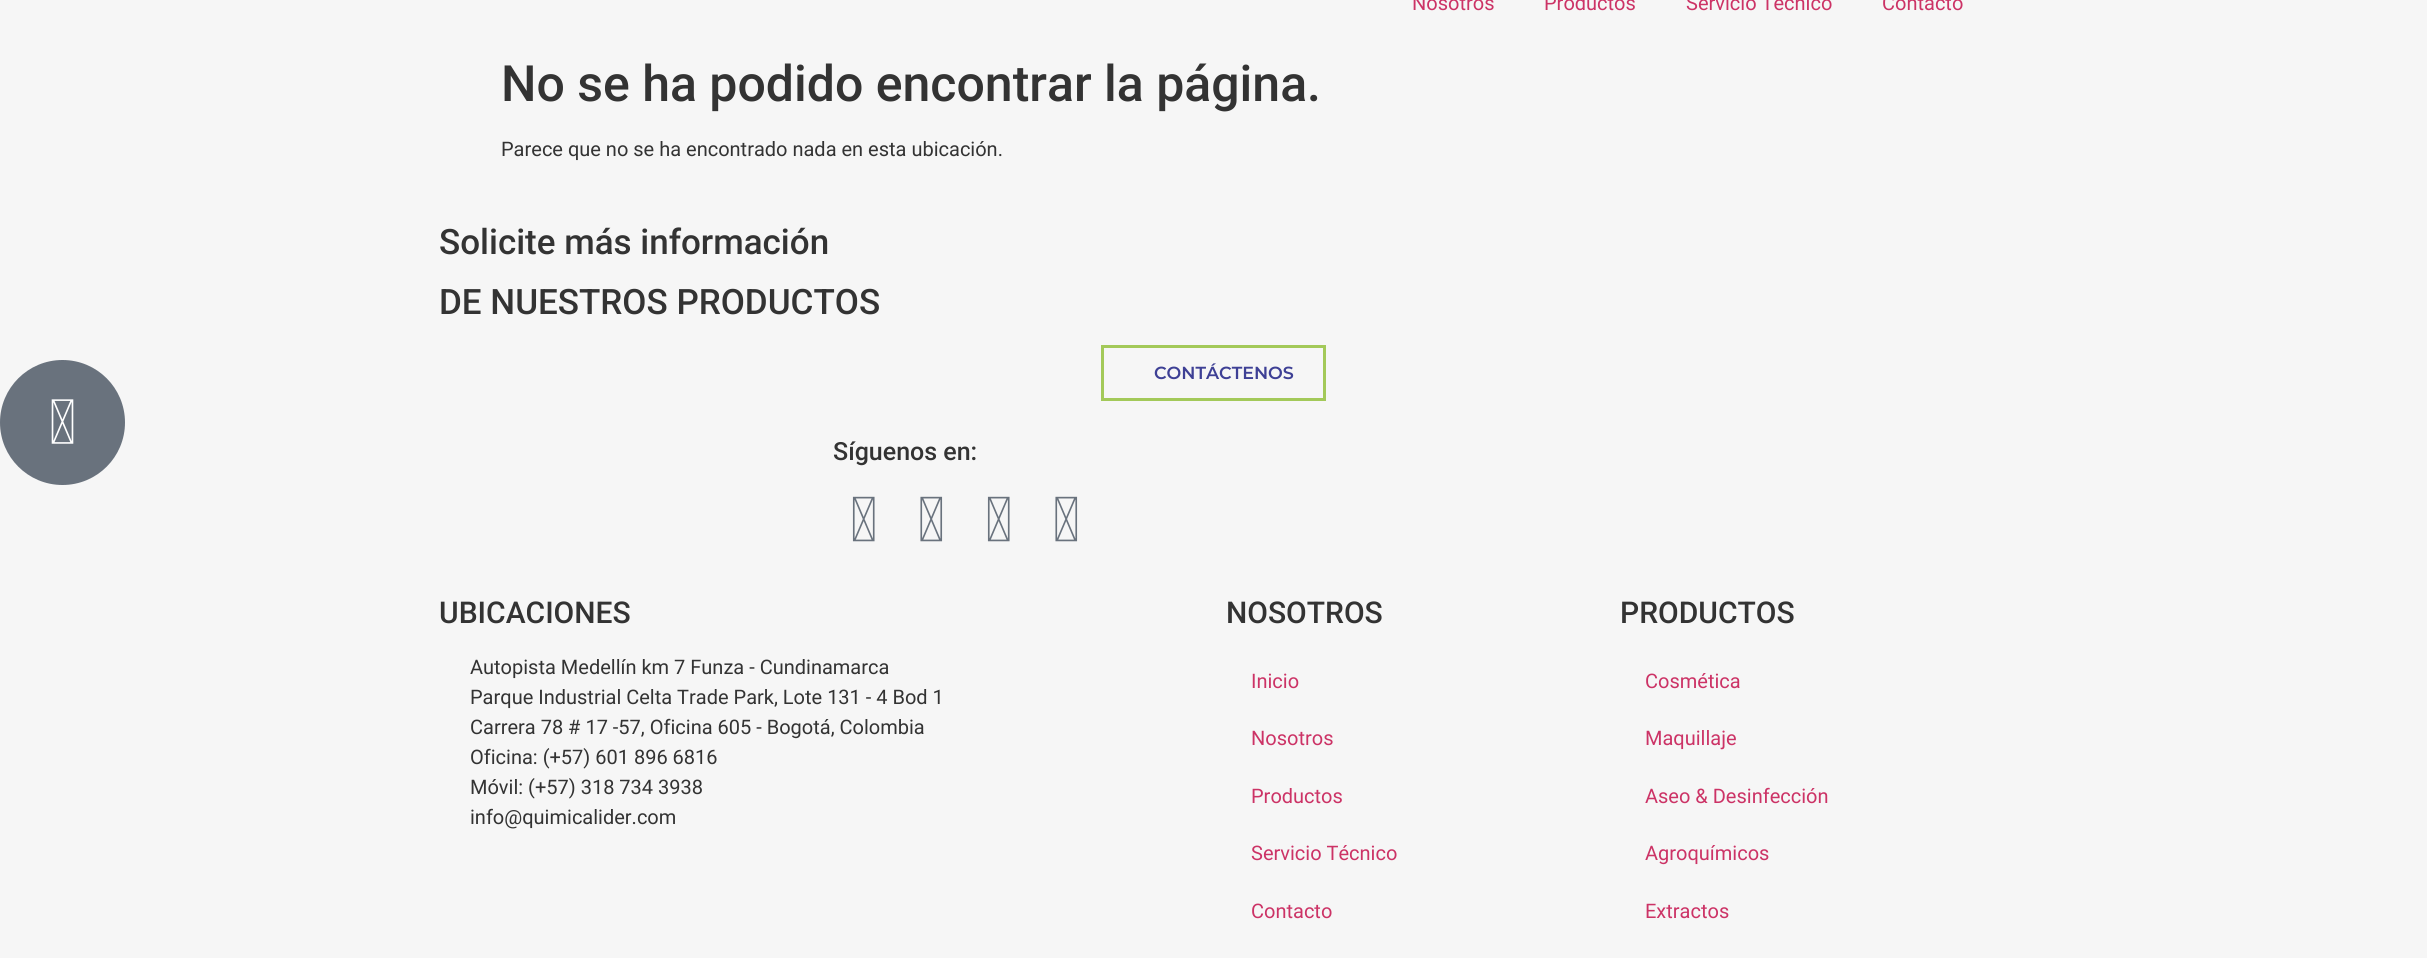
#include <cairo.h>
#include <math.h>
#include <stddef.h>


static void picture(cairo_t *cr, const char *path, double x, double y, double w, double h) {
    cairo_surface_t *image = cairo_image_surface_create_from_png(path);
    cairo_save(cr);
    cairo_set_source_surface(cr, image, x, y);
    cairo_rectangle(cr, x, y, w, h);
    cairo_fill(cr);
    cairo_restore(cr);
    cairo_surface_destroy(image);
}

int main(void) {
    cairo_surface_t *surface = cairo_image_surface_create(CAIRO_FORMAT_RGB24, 2427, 958);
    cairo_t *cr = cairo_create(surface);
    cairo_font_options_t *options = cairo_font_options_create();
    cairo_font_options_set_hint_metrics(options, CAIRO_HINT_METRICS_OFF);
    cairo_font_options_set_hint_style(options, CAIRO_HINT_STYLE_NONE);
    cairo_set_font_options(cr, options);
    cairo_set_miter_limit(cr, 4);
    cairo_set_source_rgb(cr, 0.961, 0.961, 0.961);
    cairo_paint(cr);
    cairo_select_font_face(cr, "Roboto", CAIRO_FONT_SLANT_NORMAL, CAIRO_FONT_WEIGHT_NORMAL);
    cairo_set_font_size(cr, 20);
    cairo_set_source_rgb(cr, 0.8, 0.2, 0.4);
    cairo_move_to(cr, 1412, 10);
    cairo_show_text(cr, "Nosotros");
    cairo_move_to(cr, 1544, 10);
    cairo_show_text(cr, "Productos");
    cairo_move_to(cr, 1686, 10);
    cairo_show_text(cr, "Servicio Técnico");
    cairo_move_to(cr, 1882, 10);
    cairo_show_text(cr, "Contacto");
    cairo_select_font_face(cr, "Roboto Medium", CAIRO_FONT_SLANT_NORMAL, CAIRO_FONT_WEIGHT_NORMAL);
    cairo_set_font_size(cr, 50);
    cairo_set_source_rgb(cr, 0.2, 0.2, 0.2);
    cairo_move_to(cr, 501, 101);
    cairo_show_text(cr, "No se ha podido encontrar la página.");
    cairo_select_font_face(cr, "Roboto", CAIRO_FONT_SLANT_NORMAL, CAIRO_FONT_WEIGHT_NORMAL);
    cairo_set_font_size(cr, 20);
    cairo_move_to(cr, 501, 156);
    cairo_show_text(cr, "Parece que no se ha encontrado nada en esta ubicación.");
    cairo_select_font_face(cr, "Roboto Medium", CAIRO_FONT_SLANT_NORMAL, CAIRO_FONT_WEIGHT_NORMAL);
    cairo_set_font_size(cr, 35);
    cairo_move_to(cr, 439, 254);
    cairo_show_text(cr, "Solicite más información");
    cairo_move_to(cr, 439, 314);
    cairo_show_text(cr, "DE NUESTROS PRODUCTOS");
    cairo_rectangle(cr, 1102.5, 346.5, 222, 53);
    cairo_set_source_rgb(cr, 0.639, 0.788, 0.349);
    cairo_set_line_width(cr, 3);
    cairo_stroke(cr);
    cairo_select_font_face(cr, "Montserrat SemiBold", CAIRO_FONT_SLANT_NORMAL, CAIRO_FONT_WEIGHT_NORMAL);
    cairo_set_font_size(cr, 17.5);
    cairo_set_source_rgb(cr, 0.243, 0.251, 0.584);
    cairo_move_to(cr, 1154, 379);
    cairo_show_text(cr, "CONTÁCTENOS");
    cairo_set_source_rgb(cr, 0.412, 0.447, 0.49);
    cairo_new_path(cr);
    cairo_arc(cr, 62.5, 422.5, 62.5, 0, 2 * M_PI);
    cairo_fill(cr);
    picture(cr, "img1.png", 51, 399, 23, 45);
    cairo_select_font_face(cr, "Roboto Medium", CAIRO_FONT_SLANT_NORMAL, CAIRO_FONT_WEIGHT_NORMAL);
    cairo_set_font_size(cr, 25);
    cairo_set_source_rgb(cr, 0.2, 0.2, 0.2);
    cairo_move_to(cr, 833, 460);
    cairo_show_text(cr, "Síguenos en:");
    picture(cr, "img2.png", 852, 496, 23, 46);
    picture(cr, "img3.png", 920, 496, 23, 46);
    picture(cr, "img2.png", 987, 496, 23, 46);
    picture(cr, "img3.png", 1055, 496, 23, 46);
    cairo_set_font_size(cr, 30);
    cairo_move_to(cr, 439, 623);
    cairo_show_text(cr, "UBICACIONES");
    cairo_select_font_face(cr, "Roboto", CAIRO_FONT_SLANT_NORMAL, CAIRO_FONT_WEIGHT_NORMAL);
    cairo_set_font_size(cr, 20);
    cairo_move_to(cr, 470, 674);
    cairo_show_text(cr, "Autopista Medellín km 7 Funza - Cundinamarca");
    cairo_move_to(cr, 470, 704);
    cairo_show_text(cr, "Parque Industrial Celta Trade Park, Lote 131 - 4 Bod 1");
    cairo_move_to(cr, 470, 734);
    cairo_show_text(cr, "Carrera 78 # 17 -57, Oficina 605 - Bogotá, Colombia");
    cairo_move_to(cr, 470, 764);
    cairo_show_text(cr, "Oficina: (+57) 601 896 6816");
    cairo_move_to(cr, 470, 794);
    cairo_show_text(cr, "Móvil: (+57) 318 734 3938");
    cairo_move_to(cr, 470, 824);
    cairo_show_text(cr, "info@quimicalider.com");
    cairo_select_font_face(cr, "Roboto Medium", CAIRO_FONT_SLANT_NORMAL, CAIRO_FONT_WEIGHT_NORMAL);
    cairo_set_font_size(cr, 30);
    cairo_move_to(cr, 1226, 623);
    cairo_show_text(cr, "NOSOTROS");
    cairo_select_font_face(cr, "Roboto", CAIRO_FONT_SLANT_NORMAL, CAIRO_FONT_WEIGHT_NORMAL);
    cairo_set_font_size(cr, 20);
    cairo_set_source_rgb(cr, 0.8, 0.2, 0.4);
    cairo_move_to(cr, 1251, 688);
    cairo_show_text(cr, "Inicio");
    cairo_move_to(cr, 1251, 745);
    cairo_show_text(cr, "Nosotros");
    cairo_move_to(cr, 1251, 803);
    cairo_show_text(cr, "Productos");
    cairo_move_to(cr, 1251, 860);
    cairo_show_text(cr, "Servicio Técnico");
    cairo_move_to(cr, 1251, 918);
    cairo_show_text(cr, "Contacto");
    cairo_select_font_face(cr, "Roboto Medium", CAIRO_FONT_SLANT_NORMAL, CAIRO_FONT_WEIGHT_NORMAL);
    cairo_set_font_size(cr, 30);
    cairo_set_source_rgb(cr, 0.2, 0.2, 0.2);
    cairo_move_to(cr, 1620, 623);
    cairo_show_text(cr, "PRODUCTOS");
    cairo_select_font_face(cr, "Roboto", CAIRO_FONT_SLANT_NORMAL, CAIRO_FONT_WEIGHT_NORMAL);
    cairo_set_font_size(cr, 20);
    cairo_set_source_rgb(cr, 0.8, 0.2, 0.4);
    cairo_move_to(cr, 1645, 688);
    cairo_show_text(cr, "Cosmética");
    cairo_move_to(cr, 1645, 745);
    cairo_show_text(cr, "Maquillaje");
    cairo_move_to(cr, 1645, 803);
    cairo_show_text(cr, "Aseo & Desinfección");
    cairo_move_to(cr, 1645, 860);
    cairo_show_text(cr, "Agroquímicos");
    cairo_move_to(cr, 1645, 918);
    cairo_show_text(cr, "Extractos");
    cairo_surface_write_to_png(surface, "page.png");
    cairo_font_options_destroy(options);
    cairo_destroy(cr);
    cairo_surface_destroy(surface);
    return 0;
}
